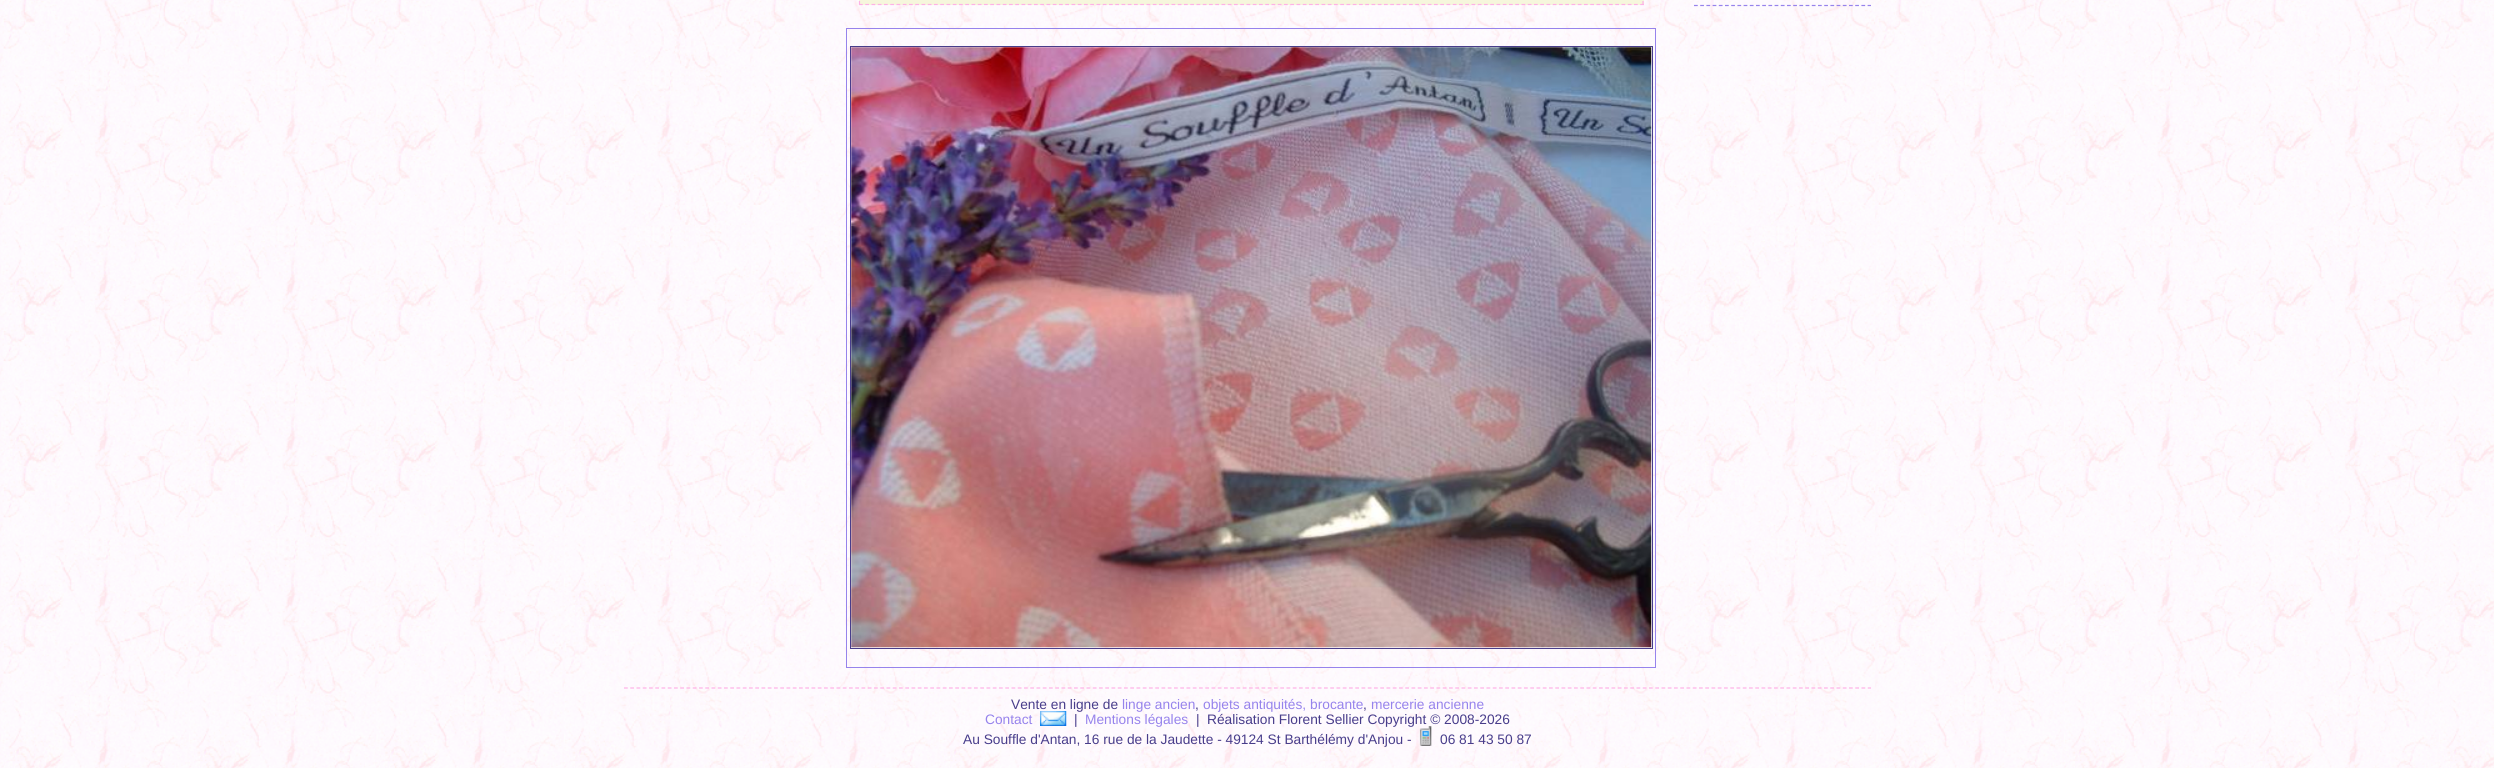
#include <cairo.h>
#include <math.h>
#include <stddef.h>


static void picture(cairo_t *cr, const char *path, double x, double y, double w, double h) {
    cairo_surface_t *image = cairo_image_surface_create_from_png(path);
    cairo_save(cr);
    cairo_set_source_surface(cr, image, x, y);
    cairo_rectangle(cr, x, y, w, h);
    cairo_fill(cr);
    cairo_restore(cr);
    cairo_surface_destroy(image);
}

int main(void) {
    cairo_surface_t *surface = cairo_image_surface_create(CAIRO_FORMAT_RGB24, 2494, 768);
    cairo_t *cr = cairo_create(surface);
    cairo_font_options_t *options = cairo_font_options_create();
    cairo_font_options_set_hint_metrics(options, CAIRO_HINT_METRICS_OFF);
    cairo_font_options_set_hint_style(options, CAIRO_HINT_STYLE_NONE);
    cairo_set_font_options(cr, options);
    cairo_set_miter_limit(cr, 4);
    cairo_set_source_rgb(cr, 1, 1, 1);
    cairo_paint(cr);
    picture(cr, "img1.png", 0, 0, 2494, 768);
    cairo_set_source_rgb(cr, 0.961, 0.961, 0.863);
    cairo_rectangle(cr, 859, 0, 785, 5);
    cairo_fill(cr);
    cairo_new_path(cr);
    cairo_move_to(cr, 1643, -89);
    cairo_line_to(cr, 1643, 5);
    cairo_set_source_rgb(cr, 0.996, 0.694, 0.902);
    cairo_set_line_width(cr, 1.2);
    cairo_set_dash(cr, (double[]){3.75, 2.68}, 2, 0);
    cairo_stroke(cr);
    cairo_new_path(cr);
    cairo_move_to(cr, 859, 4.5);
    cairo_line_to(cr, 1644, 4.5);
    cairo_set_dash(cr, (double[]){3.75, 2.5}, 2, 0);
    cairo_stroke(cr);
    cairo_new_path(cr);
    cairo_move_to(cr, 859.5, -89);
    cairo_line_to(cr, 859.5, 5);
    cairo_set_dash(cr, (double[]){3.75, 2.68}, 2, 0);
    cairo_stroke(cr);
    cairo_rectangle(cr, 846.5, 28.5, 809, 639);
    cairo_set_source_rgb(cr, 0.588, 0.514, 0.925);
    cairo_set_line_width(cr, 1);
    cairo_set_dash(cr, NULL, 0, 0);
    cairo_stroke(cr);
    cairo_rectangle(cr, 850.5, 46.5, 802, 602);
    cairo_set_source_rgb(cr, 0.282, 0.239, 0.545);
    cairo_stroke(cr);
    picture(cr, "img2.png", 851, 47, 801, 601);
    cairo_new_path(cr);
    cairo_move_to(cr, 1694, 5.5);
    cairo_line_to(cr, 1871, 5.5);
    cairo_set_source_rgb(cr, 0.588, 0.514, 0.925);
    cairo_set_line_width(cr, 1.2);
    cairo_set_dash(cr, (double[]){3.75, 2.45}, 2, 0);
    cairo_stroke(cr);
    cairo_new_path(cr);
    cairo_move_to(cr, 624, 688);
    cairo_line_to(cr, 1871, 688);
    cairo_set_source_rgb(cr, 0.996, 0.694, 0.902);
    cairo_set_dash(cr, (double[]){3.75, 2.5}, 2, 0);
    cairo_stroke(cr);
    cairo_select_font_face(cr, "Liberation Sans", CAIRO_FONT_SLANT_NORMAL, CAIRO_FONT_WEIGHT_NORMAL);
    cairo_set_font_size(cr, 13.75);
    cairo_set_source_rgb(cr, 0.282, 0.239, 0.545);
    cairo_move_to(cr, 1011, 709);
    cairo_show_text(cr, "Vente en ligne de");
    cairo_set_source_rgb(cr, 0.588, 0.514, 0.925);
    cairo_move_to(cr, 1122, 709);
    cairo_show_text(cr, "linge ancien");
    cairo_set_source_rgb(cr, 0.282, 0.239, 0.545);
    cairo_move_to(cr, 1195, 709);
    cairo_show_text(cr, ",");
    cairo_set_source_rgb(cr, 0.588, 0.514, 0.925);
    cairo_move_to(cr, 1203, 709);
    cairo_show_text(cr, "objets antiquités, brocante");
    cairo_set_source_rgb(cr, 0.282, 0.239, 0.545);
    cairo_move_to(cr, 1363, 709);
    cairo_show_text(cr, ",");
    cairo_set_source_rgb(cr, 0.588, 0.514, 0.925);
    cairo_move_to(cr, 1371, 709);
    cairo_show_text(cr, "mercerie ancienne");
    cairo_move_to(cr, 985, 724);
    cairo_show_text(cr, "Contact");
    picture(cr, "img3.png", 1040, 711, 27, 15);
    cairo_set_source_rgb(cr, 0.282, 0.239, 0.545);
    cairo_move_to(cr, 1074, 724);
    cairo_show_text(cr, "|");
    cairo_set_source_rgb(cr, 0.588, 0.514, 0.925);
    cairo_move_to(cr, 1085, 724);
    cairo_show_text(cr, "Mentions légales");
    cairo_set_source_rgb(cr, 0.282, 0.239, 0.545);
    cairo_move_to(cr, 1196, 724);
    cairo_show_text(cr, "|");
    cairo_move_to(cr, 1207, 724);
    cairo_show_text(cr, "Réalisation Florent Sellier Copyright © 2008-2026");
    cairo_move_to(cr, 963, 744);
    cairo_show_text(cr, "Au Souffle d'Antan, 16 rue de la Jaudette - 49124 St Barthélémy d'Anjou -");
    picture(cr, "img4.png", 1419, 726, 13, 20);
    cairo_move_to(cr, 1440, 744);
    cairo_show_text(cr, "06 81 43 50 87");
    cairo_surface_write_to_png(surface, "page.png");
    cairo_font_options_destroy(options);
    cairo_destroy(cr);
    cairo_surface_destroy(surface);
    return 0;
}
